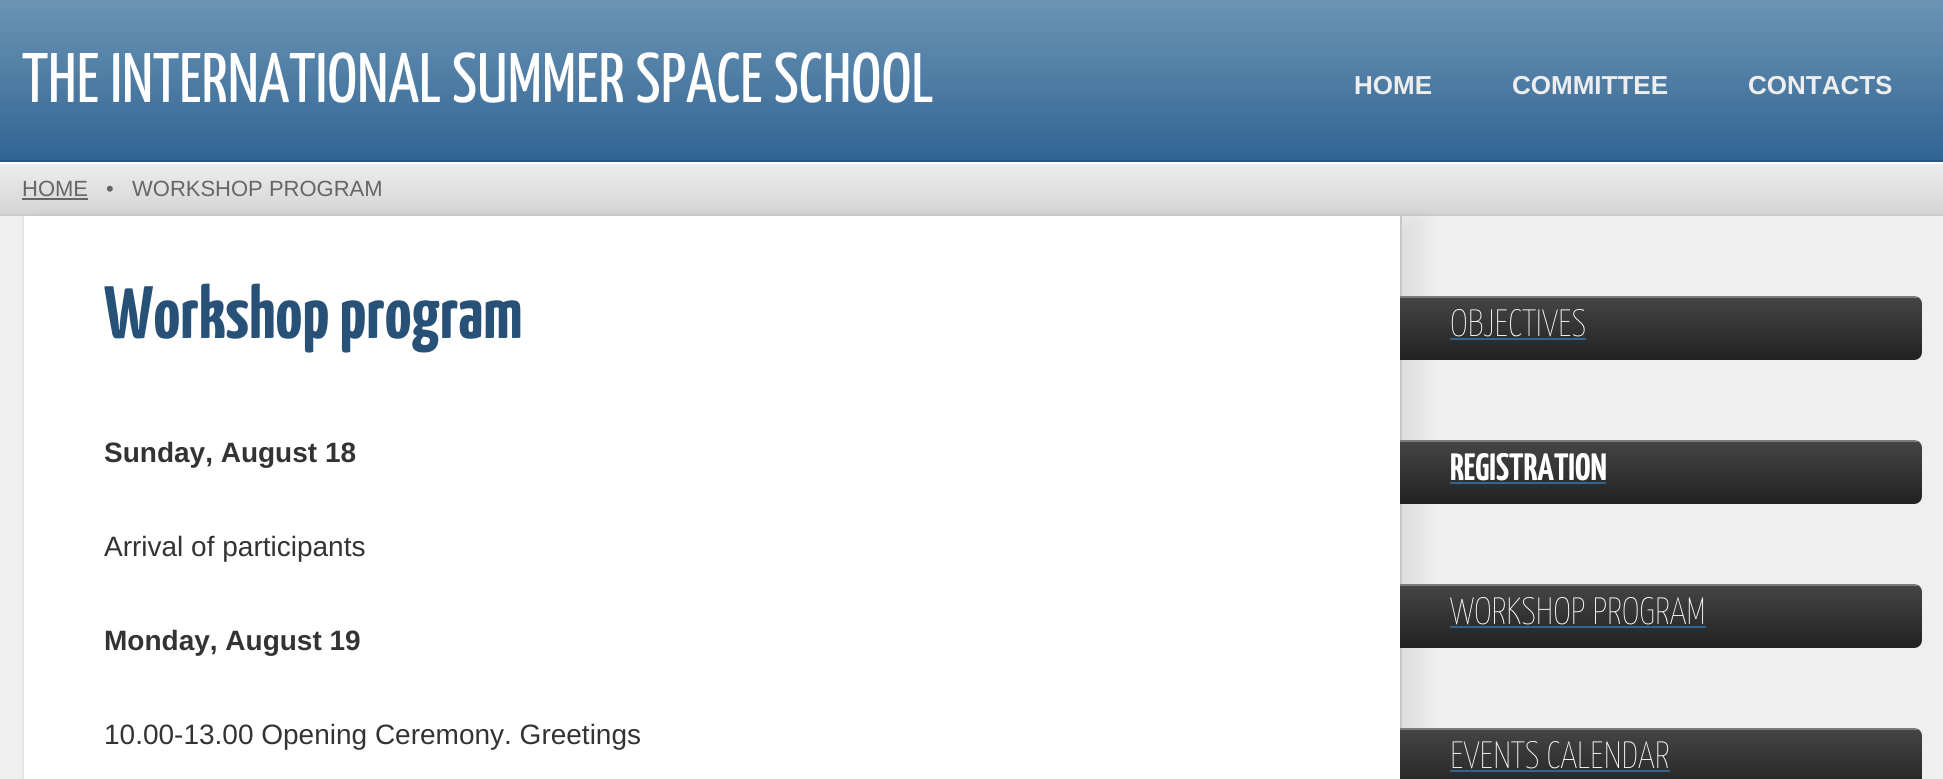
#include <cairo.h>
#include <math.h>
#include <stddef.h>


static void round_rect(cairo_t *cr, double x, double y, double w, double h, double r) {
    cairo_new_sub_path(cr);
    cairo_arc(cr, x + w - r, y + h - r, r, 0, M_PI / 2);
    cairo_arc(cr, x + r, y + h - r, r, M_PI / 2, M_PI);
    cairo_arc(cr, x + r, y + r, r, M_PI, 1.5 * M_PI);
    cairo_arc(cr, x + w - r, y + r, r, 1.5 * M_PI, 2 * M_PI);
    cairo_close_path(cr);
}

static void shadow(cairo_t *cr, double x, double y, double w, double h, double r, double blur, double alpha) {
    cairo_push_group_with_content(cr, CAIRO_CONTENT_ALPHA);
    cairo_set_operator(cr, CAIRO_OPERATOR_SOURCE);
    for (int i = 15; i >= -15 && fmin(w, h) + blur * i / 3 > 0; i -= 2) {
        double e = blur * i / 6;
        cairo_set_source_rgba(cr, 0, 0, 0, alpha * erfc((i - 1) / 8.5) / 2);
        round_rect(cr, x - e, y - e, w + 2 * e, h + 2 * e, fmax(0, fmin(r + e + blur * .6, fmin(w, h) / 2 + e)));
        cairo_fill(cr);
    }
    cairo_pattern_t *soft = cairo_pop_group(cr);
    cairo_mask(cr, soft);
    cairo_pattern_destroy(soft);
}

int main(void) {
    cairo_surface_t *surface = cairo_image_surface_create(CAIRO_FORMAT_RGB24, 1943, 779);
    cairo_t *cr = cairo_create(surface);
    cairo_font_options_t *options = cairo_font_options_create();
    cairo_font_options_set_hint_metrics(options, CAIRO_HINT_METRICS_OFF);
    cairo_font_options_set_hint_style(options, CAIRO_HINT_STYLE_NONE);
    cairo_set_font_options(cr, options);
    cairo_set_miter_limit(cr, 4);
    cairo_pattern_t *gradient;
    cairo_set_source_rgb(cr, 0.937, 0.937, 0.937);
    cairo_paint(cr);
    gradient = cairo_pattern_create_linear(0, 0, 0, 160);
    cairo_pattern_add_color_stop_rgba(gradient, 0, 0.42, 0.58, 0.706, 1);
    cairo_pattern_add_color_stop_rgba(gradient, 1, 0.192, 0.396, 0.58, 1);
    cairo_set_source(cr, gradient);
    cairo_pattern_destroy(gradient);
    cairo_rectangle(cr, 0, 0, 1943, 160);
    cairo_fill(cr);
    cairo_set_source_rgb(cr, 0.169, 0.341, 0.502);
    cairo_rectangle(cr, 0, 160, 1943, 2);
    cairo_fill(cr);
    cairo_select_font_face(cr, "Yanone Kaffeesatz", CAIRO_FONT_SLANT_NORMAL, CAIRO_FONT_WEIGHT_NORMAL);
    cairo_set_font_size(cr, 70);
    cairo_set_source_rgb(cr, 1, 1, 1);
    cairo_move_to(cr, 22, 102);
    cairo_show_text(cr, "THE INTERNATIONAL SUMMER SPACE SCHOOL");
    cairo_select_font_face(cr, "Liberation Sans", CAIRO_FONT_SLANT_NORMAL, CAIRO_FONT_WEIGHT_BOLD);
    cairo_set_font_size(cr, 26);
    cairo_set_source_rgb(cr, 0.933, 0.933, 0.933);
    cairo_move_to(cr, 1354, 94);
    cairo_show_text(cr, "HOME");
    cairo_move_to(cr, 1512, 94);
    cairo_show_text(cr, "COMMITTEE");
    cairo_move_to(cr, 1748, 94);
    cairo_show_text(cr, "CONTACTS");
    gradient = cairo_pattern_create_linear(0, 164, 0, 214);
    cairo_pattern_add_color_stop_rgba(gradient, 0, 0.929, 0.929, 0.929, 1);
    cairo_pattern_add_color_stop_rgba(gradient, 1, 0.835, 0.835, 0.835, 1);
    cairo_set_source(cr, gradient);
    cairo_pattern_destroy(gradient);
    cairo_rectangle(cr, 0, 165, 1943, 49);
    cairo_fill(cr);
    cairo_set_source_rgb(cr, 1, 1, 1);
    cairo_rectangle(cr, 0, 162, 1943, 2);
    cairo_fill(cr);
    cairo_set_source_rgb(cr, 0.8, 0.8, 0.8);
    cairo_rectangle(cr, 0, 214, 1943, 2);
    cairo_fill(cr);
    cairo_select_font_face(cr, "Liberation Sans", CAIRO_FONT_SLANT_NORMAL, CAIRO_FONT_WEIGHT_NORMAL);
    cairo_set_font_size(cr, 22);
    cairo_set_source_rgb(cr, 0.4, 0.4, 0.4);
    cairo_move_to(cr, 22, 196);
    cairo_show_text(cr, "HOME");
    cairo_rectangle(cr, 22, 198, 66, 2);
    cairo_fill(cr);
    cairo_move_to(cr, 106, 196);
    cairo_show_text(cr, "•");
    cairo_move_to(cr, 132, 196);
    cairo_show_text(cr, "WORKSHOP PROGRAM");
    cairo_set_source_rgb(cr, 0, 0, 0);
    shadow(cr, 42, 218, 1380, 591, 0, 10, 0.07);
    cairo_set_source_rgb(cr, 1, 1, 1);
    cairo_rectangle(cr, 24, 216, 1376, 563);
    cairo_fill(cr);
    cairo_set_source_rgb(cr, 0.784, 0.784, 0.784);
    cairo_rectangle(cr, 1400, 216, 2, 512);
    cairo_fill(cr);
    cairo_set_source_rgb(cr, 0.894, 0.894, 0.894);
    cairo_rectangle(cr, 22, 216, 2, 563);
    cairo_fill(cr);
    cairo_select_font_face(cr, "Yanone Kaffeesatz", CAIRO_FONT_SLANT_NORMAL, CAIRO_FONT_WEIGHT_BOLD);
    cairo_set_font_size(cr, 74);
    cairo_set_source_rgb(cr, 0.153, 0.318, 0.463);
    cairo_move_to(cr, 104, 338);
    cairo_show_text(cr, "Workshop program");
    cairo_select_font_face(cr, "Liberation Sans", CAIRO_FONT_SLANT_NORMAL, CAIRO_FONT_WEIGHT_BOLD);
    cairo_set_font_size(cr, 28);
    cairo_set_source_rgb(cr, 0.2, 0.2, 0.2);
    cairo_move_to(cr, 104, 462);
    cairo_show_text(cr, "Sunday, August 18");
    cairo_select_font_face(cr, "Liberation Sans", CAIRO_FONT_SLANT_NORMAL, CAIRO_FONT_WEIGHT_NORMAL);
    cairo_move_to(cr, 104, 556);
    cairo_show_text(cr, "Arrival of participants");
    cairo_select_font_face(cr, "Liberation Sans", CAIRO_FONT_SLANT_NORMAL, CAIRO_FONT_WEIGHT_BOLD);
    cairo_move_to(cr, 104, 650);
    cairo_show_text(cr, "Monday, August 19");
    cairo_select_font_face(cr, "Liberation Sans", CAIRO_FONT_SLANT_NORMAL, CAIRO_FONT_WEIGHT_NORMAL);
    cairo_move_to(cr, 104, 744);
    cairo_show_text(cr, "10.00-13.00 Opening Ceremony. Greetings");
    cairo_save(cr);
    cairo_new_path(cr);
    cairo_move_to(cr, 1400, 296);
    cairo_line_to(cr, 1914, 296);
    cairo_curve_to(cr, 1918.5, 296, 1922, 299.5, 1922, 304);
    cairo_line_to(cr, 1922, 352);
    cairo_curve_to(cr, 1922, 356.5, 1918.5, 360, 1914, 360);
    cairo_line_to(cr, 1400, 360);
    cairo_close_path(cr);
    cairo_clip(cr);
    gradient = cairo_pattern_create_linear(1400, 236, 1400, 298);
    cairo_pattern_add_color_stop_rgba(gradient, 0, 0.267, 0.267, 0.267, 1);
    cairo_pattern_add_color_stop_rgba(gradient, 1, 0.133, 0.133, 0.133, 1);
    cairo_set_source(cr, gradient);
    cairo_pattern_destroy(gradient);
    cairo_rectangle(cr, 1400, 296, 522, 2);
    cairo_fill(cr);
    gradient = cairo_pattern_create_linear(1400, 298, 1400, 360);
    cairo_pattern_add_color_stop_rgba(gradient, 0, 0.267, 0.267, 0.267, 1);
    cairo_pattern_add_color_stop_rgba(gradient, 1, 0.133, 0.133, 0.133, 1);
    cairo_set_source(cr, gradient);
    cairo_pattern_destroy(gradient);
    cairo_new_path(cr);
    cairo_move_to(cr, 1400, 298);
    cairo_line_to(cr, 1922, 298);
    cairo_line_to(cr, 1922, 352);
    cairo_curve_to(cr, 1922, 356.5, 1918.5, 360, 1914, 360);
    cairo_line_to(cr, 1400, 360);
    cairo_close_path(cr);
    cairo_fill(cr);
    cairo_restore(cr);
    cairo_set_source_rgba(cr, 1, 1, 1, 0.4);
    cairo_rectangle(cr, 1400, 296, 518, 2);
    cairo_fill(cr);
    cairo_select_font_face(cr, "Yanone Kaffeesatz ExtraLight", CAIRO_FONT_SLANT_NORMAL, CAIRO_FONT_WEIGHT_NORMAL);
    cairo_set_font_size(cr, 38);
    cairo_set_source_rgb(cr, 1, 1, 1);
    cairo_move_to(cr, 1450, 336);
    cairo_show_text(cr, "OBJECTIVES");
    cairo_set_source_rgb(cr, 0.192, 0.396, 0.58);
    cairo_rectangle(cr, 1450, 338, 136, 2);
    cairo_fill(cr);
    cairo_save(cr);
    cairo_new_path(cr);
    cairo_move_to(cr, 1400, 440);
    cairo_line_to(cr, 1914, 440);
    cairo_curve_to(cr, 1918.5, 440, 1922, 443.5, 1922, 448);
    cairo_line_to(cr, 1922, 496);
    cairo_curve_to(cr, 1922, 500.5, 1918.5, 504, 1914, 504);
    cairo_line_to(cr, 1400, 504);
    cairo_close_path(cr);
    cairo_clip(cr);
    gradient = cairo_pattern_create_linear(1400, 380, 1400, 442);
    cairo_pattern_add_color_stop_rgba(gradient, 0, 0.267, 0.267, 0.267, 1);
    cairo_pattern_add_color_stop_rgba(gradient, 1, 0.133, 0.133, 0.133, 1);
    cairo_set_source(cr, gradient);
    cairo_pattern_destroy(gradient);
    cairo_rectangle(cr, 1400, 440, 522, 2);
    cairo_fill(cr);
    gradient = cairo_pattern_create_linear(1400, 442, 1400, 504);
    cairo_pattern_add_color_stop_rgba(gradient, 0, 0.267, 0.267, 0.267, 1);
    cairo_pattern_add_color_stop_rgba(gradient, 1, 0.133, 0.133, 0.133, 1);
    cairo_set_source(cr, gradient);
    cairo_pattern_destroy(gradient);
    cairo_new_path(cr);
    cairo_move_to(cr, 1400, 442);
    cairo_line_to(cr, 1922, 442);
    cairo_line_to(cr, 1922, 496);
    cairo_curve_to(cr, 1922, 500.5, 1918.5, 504, 1914, 504);
    cairo_line_to(cr, 1400, 504);
    cairo_close_path(cr);
    cairo_fill(cr);
    cairo_restore(cr);
    cairo_set_source_rgba(cr, 1, 1, 1, 0.4);
    cairo_rectangle(cr, 1400, 440, 518, 2);
    cairo_fill(cr);
    cairo_select_font_face(cr, "Yanone Kaffeesatz", CAIRO_FONT_SLANT_NORMAL, CAIRO_FONT_WEIGHT_BOLD);
    cairo_set_source_rgb(cr, 1, 1, 1);
    cairo_move_to(cr, 1450, 480);
    cairo_show_text(cr, "REGISTRATION");
    cairo_set_source_rgb(cr, 0.192, 0.396, 0.58);
    cairo_rectangle(cr, 1450, 482, 156, 2);
    cairo_fill(cr);
    cairo_save(cr);
    cairo_new_path(cr);
    cairo_move_to(cr, 1400, 584);
    cairo_line_to(cr, 1914, 584);
    cairo_curve_to(cr, 1918.5, 584, 1922, 587.5, 1922, 592);
    cairo_line_to(cr, 1922, 640);
    cairo_curve_to(cr, 1922, 644.5, 1918.5, 648, 1914, 648);
    cairo_line_to(cr, 1400, 648);
    cairo_close_path(cr);
    cairo_clip(cr);
    gradient = cairo_pattern_create_linear(1400, 524, 1400, 586);
    cairo_pattern_add_color_stop_rgba(gradient, 0, 0.267, 0.267, 0.267, 1);
    cairo_pattern_add_color_stop_rgba(gradient, 1, 0.133, 0.133, 0.133, 1);
    cairo_set_source(cr, gradient);
    cairo_pattern_destroy(gradient);
    cairo_rectangle(cr, 1400, 584, 522, 2);
    cairo_fill(cr);
    gradient = cairo_pattern_create_linear(1400, 586, 1400, 648);
    cairo_pattern_add_color_stop_rgba(gradient, 0, 0.267, 0.267, 0.267, 1);
    cairo_pattern_add_color_stop_rgba(gradient, 1, 0.133, 0.133, 0.133, 1);
    cairo_set_source(cr, gradient);
    cairo_pattern_destroy(gradient);
    cairo_new_path(cr);
    cairo_move_to(cr, 1400, 586);
    cairo_line_to(cr, 1922, 586);
    cairo_line_to(cr, 1922, 640);
    cairo_curve_to(cr, 1922, 644.5, 1918.5, 648, 1914, 648);
    cairo_line_to(cr, 1400, 648);
    cairo_close_path(cr);
    cairo_fill(cr);
    cairo_restore(cr);
    cairo_set_source_rgba(cr, 1, 1, 1, 0.4);
    cairo_rectangle(cr, 1400, 584, 518, 2);
    cairo_fill(cr);
    cairo_select_font_face(cr, "Yanone Kaffeesatz ExtraLight", CAIRO_FONT_SLANT_NORMAL, CAIRO_FONT_WEIGHT_NORMAL);
    cairo_set_source_rgb(cr, 1, 1, 1);
    cairo_move_to(cr, 1450, 624);
    cairo_show_text(cr, "WORKSHOP PROGRAM");
    cairo_set_source_rgb(cr, 0.192, 0.396, 0.58);
    cairo_rectangle(cr, 1450, 626, 256, 2);
    cairo_fill(cr);
    cairo_save(cr);
    cairo_new_path(cr);
    cairo_move_to(cr, 1400, 728);
    cairo_line_to(cr, 1914, 728);
    cairo_curve_to(cr, 1918.5, 728, 1922, 731.5, 1922, 736);
    cairo_line_to(cr, 1922, 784);
    cairo_curve_to(cr, 1922, 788.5, 1918.5, 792, 1914, 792);
    cairo_line_to(cr, 1400, 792);
    cairo_close_path(cr);
    cairo_clip(cr);
    gradient = cairo_pattern_create_linear(1400, 668, 1400, 730);
    cairo_pattern_add_color_stop_rgba(gradient, 0, 0.267, 0.267, 0.267, 1);
    cairo_pattern_add_color_stop_rgba(gradient, 1, 0.133, 0.133, 0.133, 1);
    cairo_set_source(cr, gradient);
    cairo_pattern_destroy(gradient);
    cairo_rectangle(cr, 1400, 728, 522, 2);
    cairo_fill(cr);
    gradient = cairo_pattern_create_linear(1400, 730, 1400, 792);
    cairo_pattern_add_color_stop_rgba(gradient, 0, 0.267, 0.267, 0.267, 1);
    cairo_pattern_add_color_stop_rgba(gradient, 1, 0.133, 0.133, 0.133, 1);
    cairo_set_source(cr, gradient);
    cairo_pattern_destroy(gradient);
    cairo_new_path(cr);
    cairo_move_to(cr, 1400, 730);
    cairo_line_to(cr, 1922, 730);
    cairo_line_to(cr, 1922, 779);
    cairo_curve_to(cr, 1922, 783.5, 1918.5, 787, 1914, 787);
    cairo_line_to(cr, 1400, 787);
    cairo_close_path(cr);
    cairo_fill(cr);
    cairo_restore(cr);
    cairo_set_source_rgba(cr, 1, 1, 1, 0.4);
    cairo_rectangle(cr, 1400, 728, 518, 2);
    cairo_fill(cr);
    cairo_set_source_rgb(cr, 1, 1, 1);
    cairo_move_to(cr, 1450, 768);
    cairo_show_text(cr, "EVENTS CALENDAR");
    cairo_set_source_rgb(cr, 0.192, 0.396, 0.58);
    cairo_rectangle(cr, 1450, 770, 220, 2);
    cairo_fill(cr);
    cairo_surface_write_to_png(surface, "page.png");
    cairo_font_options_destroy(options);
    cairo_destroy(cr);
    cairo_surface_destroy(surface);
    return 0;
}
